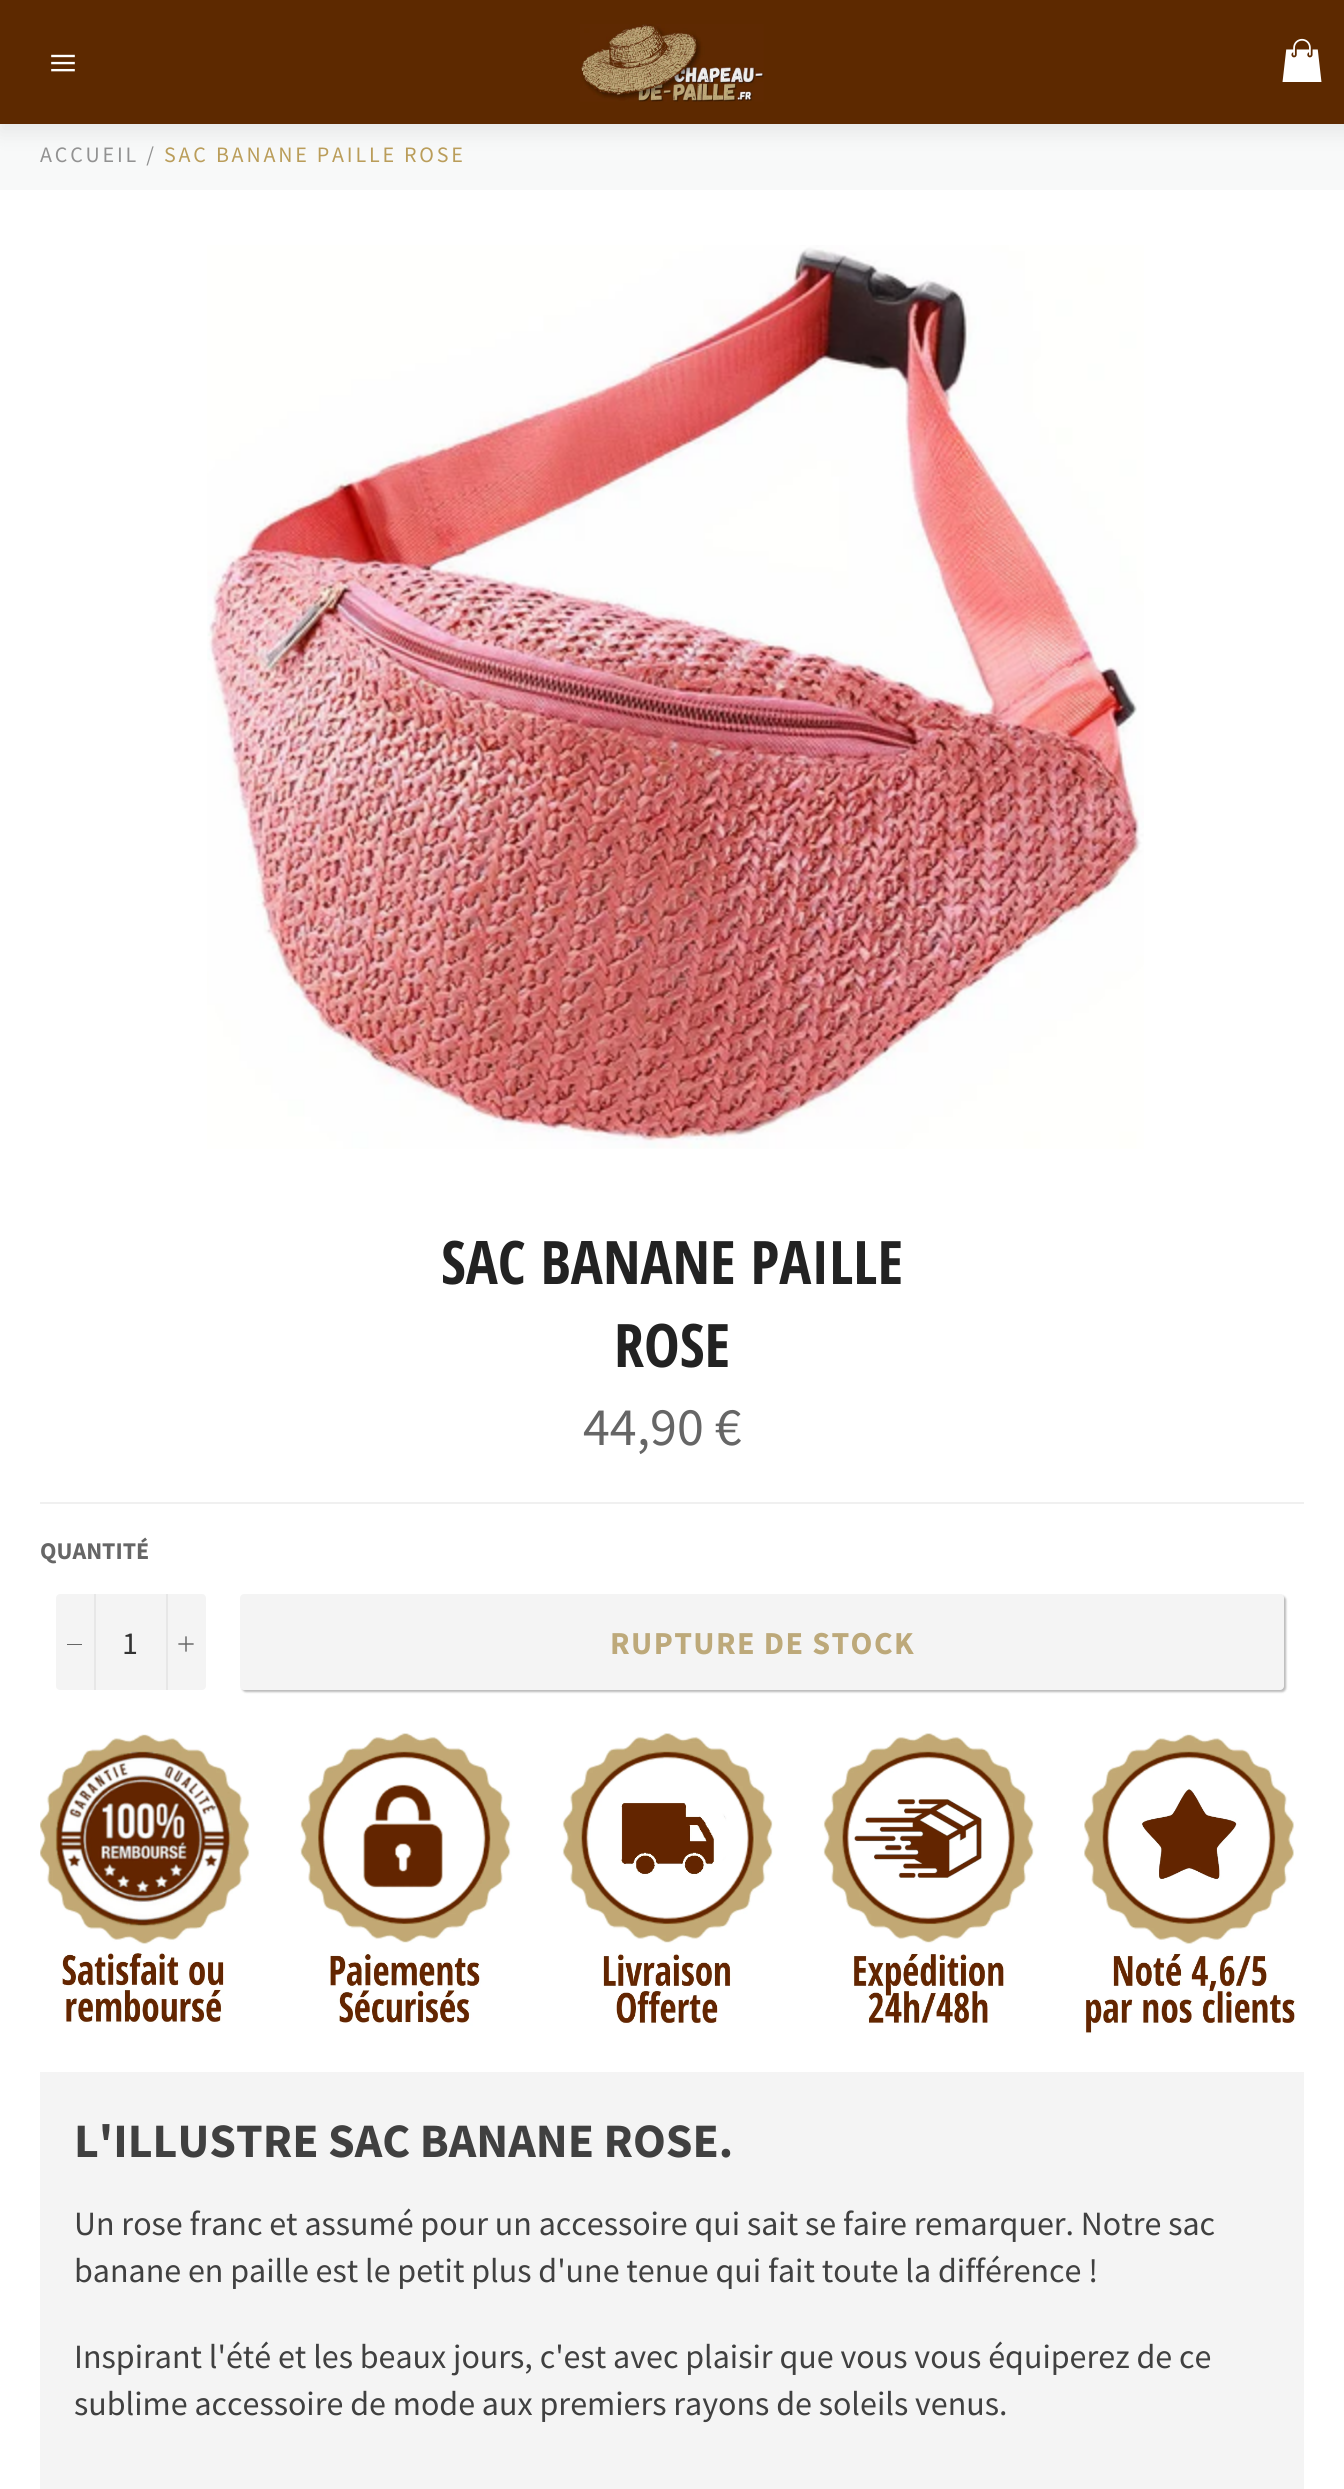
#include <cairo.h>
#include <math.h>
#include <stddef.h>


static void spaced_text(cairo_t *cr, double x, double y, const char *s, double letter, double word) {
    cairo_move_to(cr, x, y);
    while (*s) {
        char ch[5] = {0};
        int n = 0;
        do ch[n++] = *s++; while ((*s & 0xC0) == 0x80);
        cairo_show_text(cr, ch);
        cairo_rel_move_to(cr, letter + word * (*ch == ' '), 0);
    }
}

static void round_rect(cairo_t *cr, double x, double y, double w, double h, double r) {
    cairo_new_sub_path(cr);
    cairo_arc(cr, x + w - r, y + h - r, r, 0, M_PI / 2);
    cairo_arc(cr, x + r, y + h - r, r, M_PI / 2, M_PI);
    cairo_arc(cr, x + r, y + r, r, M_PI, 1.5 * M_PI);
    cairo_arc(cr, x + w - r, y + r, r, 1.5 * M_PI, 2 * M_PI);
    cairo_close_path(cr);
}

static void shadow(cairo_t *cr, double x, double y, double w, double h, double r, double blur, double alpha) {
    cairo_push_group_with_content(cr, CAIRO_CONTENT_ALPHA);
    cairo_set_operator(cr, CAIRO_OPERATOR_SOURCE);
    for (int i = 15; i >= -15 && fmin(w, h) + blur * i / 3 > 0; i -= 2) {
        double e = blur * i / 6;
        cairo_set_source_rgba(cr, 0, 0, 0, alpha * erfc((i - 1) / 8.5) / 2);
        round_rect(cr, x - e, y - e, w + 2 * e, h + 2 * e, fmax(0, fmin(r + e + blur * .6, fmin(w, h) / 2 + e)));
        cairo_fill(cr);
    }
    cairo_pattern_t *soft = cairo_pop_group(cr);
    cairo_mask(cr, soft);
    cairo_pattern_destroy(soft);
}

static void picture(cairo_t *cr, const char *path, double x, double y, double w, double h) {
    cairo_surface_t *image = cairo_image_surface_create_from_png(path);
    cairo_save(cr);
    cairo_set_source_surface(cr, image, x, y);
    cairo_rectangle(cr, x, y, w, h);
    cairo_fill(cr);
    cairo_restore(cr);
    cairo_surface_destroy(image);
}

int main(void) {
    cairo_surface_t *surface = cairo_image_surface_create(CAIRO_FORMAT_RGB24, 1344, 2489);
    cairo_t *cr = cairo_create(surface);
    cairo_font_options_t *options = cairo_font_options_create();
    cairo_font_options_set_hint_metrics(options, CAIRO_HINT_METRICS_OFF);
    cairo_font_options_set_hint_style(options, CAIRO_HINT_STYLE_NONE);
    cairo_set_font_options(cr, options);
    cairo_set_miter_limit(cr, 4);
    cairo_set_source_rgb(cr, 1, 1, 1);
    cairo_paint(cr);
    cairo_set_source_rgb(cr, 0.969, 0.973, 0.976);
    cairo_rectangle(cr, 0, 124, 1344, 66);
    cairo_fill(cr);
    cairo_set_source_rgb(cr, 0.6, 0.6, 0.6);
    shadow(cr, 0, 0, 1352, 132, 0, 10, 0.2);
    cairo_set_source_rgb(cr, 0.365, 0.161, 0);
    cairo_rectangle(cr, 0, 0, 1344, 124);
    cairo_fill(cr);
    picture(cr, "img1.png", 51, 54, 24, 18);
    picture(cr, "img2.png", 580, 24, 184, 78);
    picture(cr, "img3.png", 1282, 38, 40, 44);
    cairo_select_font_face(cr, "Source Sans Pro", CAIRO_FONT_SLANT_NORMAL, CAIRO_FONT_WEIGHT_NORMAL);
    cairo_set_font_size(cr, 22);
    cairo_set_source_rgb(cr, 0.573, 0.573, 0.573);
    spaced_text(cr, 40, 162, "ACCUEIL /", 2.8, 0);
    cairo_set_source_rgb(cr, 0.729, 0.616, 0.353);
    spaced_text(cr, 164, 162, "SAC BANANE PAILLE ROSE", 2.8, 0);
    picture(cr, "img4.png", 207, 245, 937, 904);
    cairo_select_font_face(cr, "Open Sans Condensed", CAIRO_FONT_SLANT_NORMAL, CAIRO_FONT_WEIGHT_BOLD);
    cairo_set_font_size(cr, 60);
    cairo_set_source_rgb(cr, 0.133, 0.133, 0.133);
    cairo_move_to(cr, 441, 1284);
    cairo_show_text(cr, "SAC BANANE PAILLE");
    cairo_move_to(cr, 614, 1367);
    cairo_show_text(cr, "ROSE");
    cairo_select_font_face(cr, "Source Sans Pro", CAIRO_FONT_SLANT_NORMAL, CAIRO_FONT_WEIGHT_NORMAL);
    cairo_set_font_size(cr, 54);
    cairo_set_source_rgb(cr, 0.4, 0.4, 0.4);
    cairo_move_to(cr, 583, 1445);
    cairo_show_text(cr, "44,90 €");
    cairo_set_source_rgb(cr, 0.941, 0.941, 0.941);
    cairo_rectangle(cr, 40, 1502, 1264, 2);
    cairo_fill(cr);
    cairo_select_font_face(cr, "Source Sans Pro", CAIRO_FONT_SLANT_NORMAL, CAIRO_FONT_WEIGHT_BOLD);
    cairo_set_font_size(cr, 24);
    cairo_set_source_rgb(cr, 0.4, 0.4, 0.4);
    cairo_move_to(cr, 40, 1559);
    cairo_show_text(cr, "QUANTITÉ");
    cairo_set_source_rgb(cr, 0.957, 0.957, 0.957);
    round_rect(cr, 56, 1594, 150, 96, 4);
    cairo_fill(cr);
    cairo_set_source_rgb(cr, 0.906, 0.906, 0.906);
    cairo_rectangle(cr, 94, 1594, 2, 96);
    cairo_fill(cr);
    cairo_set_source_rgb(cr, 0.4, 0.4, 0.4);
    cairo_rectangle(cr, 67, 1644, 15, 1);
    cairo_fill(cr);
    cairo_select_font_face(cr, "Source Sans Pro", CAIRO_FONT_SLANT_NORMAL, CAIRO_FONT_WEIGHT_NORMAL);
    cairo_set_font_size(cr, 32);
    cairo_set_source_rgb(cr, 0.2, 0.2, 0.2);
    cairo_move_to(cr, 122, 1654);
    cairo_show_text(cr, "1");
    cairo_set_source_rgb(cr, 0.906, 0.906, 0.906);
    cairo_rectangle(cr, 166, 1594, 2, 96);
    cairo_fill(cr);
    picture(cr, "img5.png", 178, 1636, 16, 16);
    cairo_set_source_rgb(cr, 0, 0, 0);
    shadow(cr, 242, 1596, 1044, 96, 4, 1, 0.27);
    cairo_set_source_rgb(cr, 0.957, 0.957, 0.957);
    round_rect(cr, 240, 1594, 1044, 96, 4);
    cairo_fill(cr);
    cairo_select_font_face(cr, "Source Sans Pro", CAIRO_FONT_SLANT_NORMAL, CAIRO_FONT_WEIGHT_BOLD);
    cairo_set_source_rgb(cr, 0.741, 0.663, 0.478);
    spaced_text(cr, 610, 1654, "RUPTURE DE STOCK", 1.4, 0);
    picture(cr, "img6.png", 40, 1733, 1256, 301);
    cairo_set_source_rgb(cr, 0.957, 0.957, 0.957);
    cairo_rectangle(cr, 40, 2072, 1264, 417);
    cairo_fill(cr);
    cairo_set_font_size(cr, 48);
    cairo_set_source_rgb(cr, 0.251, 0.251, 0.251);
    cairo_move_to(cr, 74, 2157);
    cairo_show_text(cr, "L'ILLUSTRE SAC BANANE ROSE.");
    cairo_select_font_face(cr, "Source Sans Pro", CAIRO_FONT_SLANT_NORMAL, CAIRO_FONT_WEIGHT_NORMAL);
    cairo_set_font_size(cr, 34);
    cairo_move_to(cr, 74, 2235);
    cairo_show_text(cr, "Un rose franc et assumé pour un accessoire qui sait se faire remarquer. Notre sac");
    cairo_move_to(cr, 74, 2282);
    cairo_show_text(cr, "banane en paille est le petit plus d'une tenue qui fait toute la différence !");
    cairo_move_to(cr, 74, 2368);
    cairo_show_text(cr, "Inspirant l'été et les beaux jours, c'est avec plaisir que vous vous équiperez de ce");
    cairo_move_to(cr, 74, 2415);
    cairo_show_text(cr, "sublime accessoire de mode aux premiers rayons de soleils venus.");
    cairo_surface_write_to_png(surface, "page.png");
    cairo_font_options_destroy(options);
    cairo_destroy(cr);
    cairo_surface_destroy(surface);
    return 0;
}
